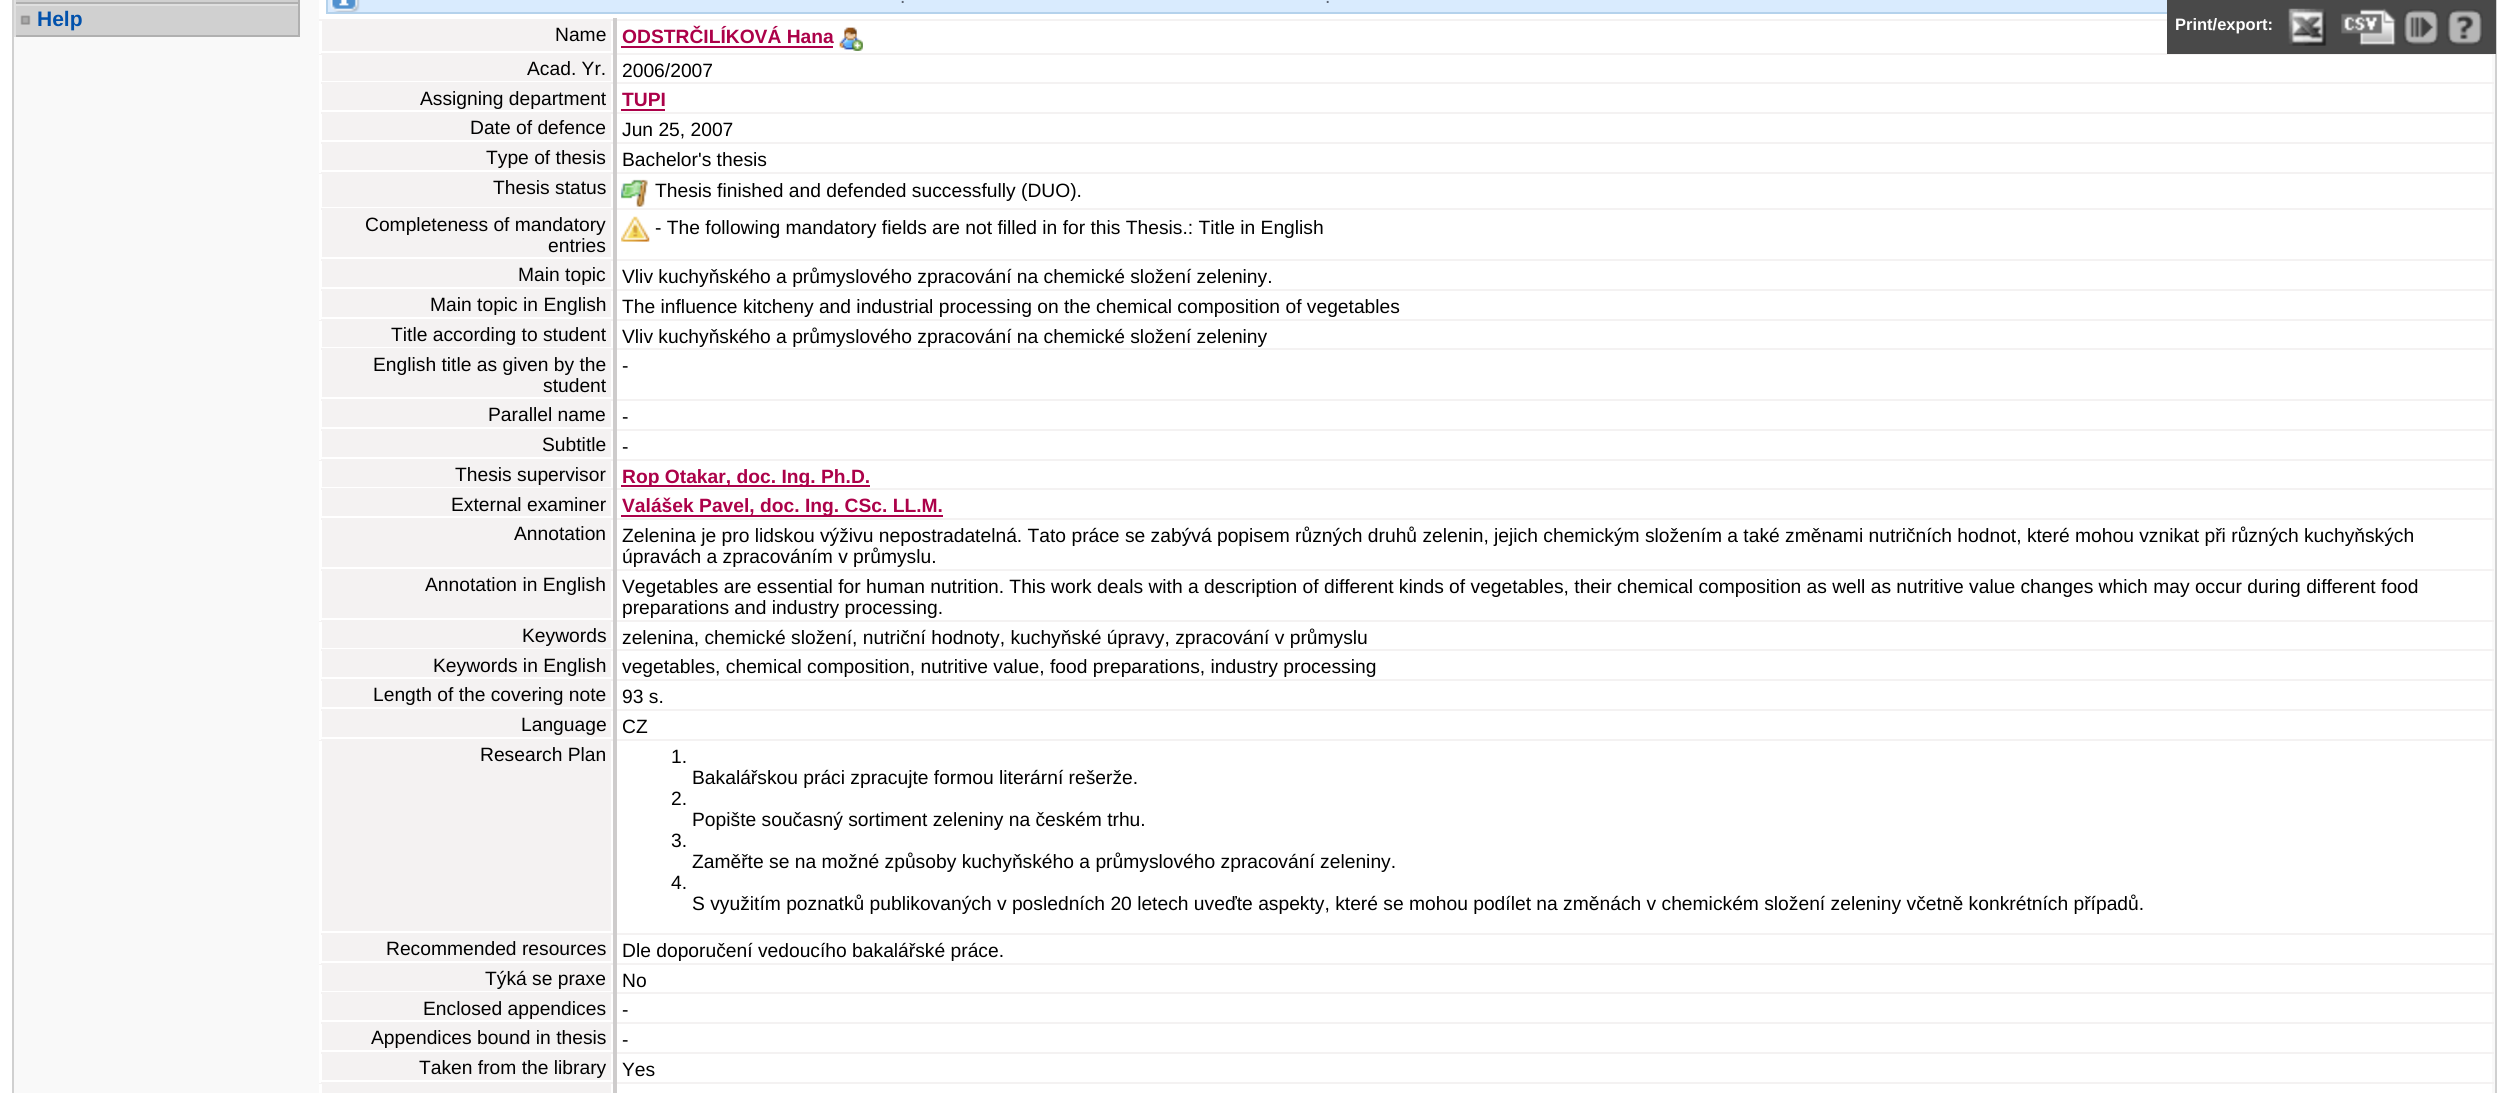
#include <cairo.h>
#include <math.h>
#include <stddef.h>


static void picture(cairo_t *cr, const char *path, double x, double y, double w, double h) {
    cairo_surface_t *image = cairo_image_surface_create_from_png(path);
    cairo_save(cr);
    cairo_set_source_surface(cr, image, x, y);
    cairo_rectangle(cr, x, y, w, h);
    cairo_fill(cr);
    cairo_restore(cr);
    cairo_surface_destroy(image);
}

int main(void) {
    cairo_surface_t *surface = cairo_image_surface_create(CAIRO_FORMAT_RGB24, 2509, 1093);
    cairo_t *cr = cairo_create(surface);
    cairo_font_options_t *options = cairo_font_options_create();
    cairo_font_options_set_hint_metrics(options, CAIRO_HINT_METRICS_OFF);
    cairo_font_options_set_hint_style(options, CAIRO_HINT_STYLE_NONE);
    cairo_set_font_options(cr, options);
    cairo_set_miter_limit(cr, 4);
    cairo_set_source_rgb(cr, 1, 1, 1);
    cairo_paint(cr);
    cairo_set_source_rgb(cr, 0.973, 0.973, 0.973);
    cairo_rectangle(cr, 13, -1, 2483, 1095);
    cairo_fill_preserve(cr);
    cairo_set_source_rgb(cr, 0.816, 0.816, 0.816);
    cairo_stroke(cr);
    cairo_rectangle(cr, 14, 0, 285, 2);
    cairo_fill(cr);
    cairo_set_source_rgb(cr, 0.69, 0.69, 0.69);
    cairo_rectangle(cr, 298, 0, 2, 4);
    cairo_fill(cr);
    cairo_rectangle(cr, 14, 2, 285, 2);
    cairo_fill(cr);
    cairo_set_source_rgb(cr, 0.875, 0.875, 0.875);
    cairo_rectangle(cr, 14, 0, 2, 4);
    cairo_fill(cr);
    cairo_set_source_rgb(cr, 0.816, 0.816, 0.816);
    cairo_rectangle(cr, 16, 6, 282, 29);
    cairo_fill(cr);
    picture(cr, "img1.png", 20, 15, 11, 10);
    cairo_set_source_rgb(cr, 0.875, 0.875, 0.875);
    cairo_rectangle(cr, 14, 4, 285, 2);
    cairo_fill(cr);
    cairo_set_source_rgb(cr, 0.69, 0.69, 0.69);
    cairo_rectangle(cr, 298, 4, 2, 33);
    cairo_fill(cr);
    cairo_rectangle(cr, 14, 35, 285, 2);
    cairo_fill(cr);
    cairo_set_source_rgb(cr, 0.875, 0.875, 0.875);
    cairo_rectangle(cr, 14, 4, 2, 33);
    cairo_fill(cr);
    cairo_select_font_face(cr, "Liberation Sans", CAIRO_FONT_SLANT_NORMAL, CAIRO_FONT_WEIGHT_BOLD);
    cairo_set_font_size(cr, 21);
    cairo_set_source_rgb(cr, 0.004, 0.318, 0.675);
    cairo_move_to(cr, 37, 26);
    cairo_show_text(cr, "Help");
    cairo_set_source_rgb(cr, 1, 1, 1);
    cairo_rectangle(cr, 319, 0, 2173, 1093);
    cairo_fill(cr);
    cairo_set_source_rgb(cr, 0.957, 0.949, 0.949);
    cairo_rectangle(cr, 319, 19, 1848, 2);
    cairo_fill(cr);
    cairo_set_source_rgb(cr, 0.851, 0.918, 0.996);
    cairo_rectangle(cr, 328, 0, 1839, 12);
    cairo_fill(cr);
    picture(cr, "img2.png", 330, 0, 30, 12);
    cairo_rectangle(cr, 327, -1, 2159, 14);
    cairo_set_source_rgb(cr, 0.706, 0.824, 0.925);
    cairo_stroke(cr);
    cairo_select_font_face(cr, "Liberation Sans", CAIRO_FONT_SLANT_NORMAL, CAIRO_FONT_WEIGHT_NORMAL);
    cairo_set_font_size(cr, 19.25);
    cairo_set_source_rgb(cr, 0.357, 0.388, 0.443);
    cairo_move_to(cr, 900, 3);
    cairo_show_text(cr, ".");
    cairo_move_to(cr, 1325, 3);
    cairo_show_text(cr, ".");
    cairo_set_source_rgb(cr, 0.957, 0.949, 0.949);
    cairo_rectangle(cr, 322, 1084, 289, 9);
    cairo_fill(cr);
    cairo_rectangle(cr, 319, 53, 2175, 2);
    cairo_fill(cr);
    cairo_rectangle(cr, 319, 82, 2175, 2);
    cairo_fill(cr);
    cairo_rectangle(cr, 319, 112, 2175, 2);
    cairo_fill(cr);
    cairo_rectangle(cr, 319, 142, 2175, 2);
    cairo_fill(cr);
    cairo_rectangle(cr, 319, 172, 2175, 2);
    cairo_fill(cr);
    cairo_rectangle(cr, 319, 208, 2175, 2);
    cairo_fill(cr);
    cairo_rectangle(cr, 319, 259, 2175, 2);
    cairo_fill(cr);
    cairo_rectangle(cr, 319, 289, 2175, 2);
    cairo_fill(cr);
    cairo_rectangle(cr, 319, 319, 2175, 2);
    cairo_fill(cr);
    cairo_rectangle(cr, 319, 348, 2175, 2);
    cairo_fill(cr);
    cairo_rectangle(cr, 319, 399, 2175, 2);
    cairo_fill(cr);
    cairo_rectangle(cr, 319, 429, 2175, 2);
    cairo_fill(cr);
    cairo_rectangle(cr, 319, 459, 2175, 2);
    cairo_fill(cr);
    cairo_rectangle(cr, 319, 488, 2175, 2);
    cairo_fill(cr);
    cairo_rectangle(cr, 319, 518, 2175, 2);
    cairo_fill(cr);
    cairo_rectangle(cr, 319, 569, 2175, 2);
    cairo_fill(cr);
    cairo_rectangle(cr, 319, 620, 2175, 2);
    cairo_fill(cr);
    cairo_rectangle(cr, 319, 649, 2175, 2);
    cairo_fill(cr);
    cairo_rectangle(cr, 319, 679, 2175, 2);
    cairo_fill(cr);
    cairo_rectangle(cr, 319, 709, 2175, 2);
    cairo_fill(cr);
    cairo_rectangle(cr, 319, 739, 2175, 2);
    cairo_fill(cr);
    cairo_rectangle(cr, 319, 933, 2175, 2);
    cairo_fill(cr);
    cairo_rectangle(cr, 319, 963, 2175, 2);
    cairo_fill(cr);
    cairo_rectangle(cr, 319, 992, 2175, 2);
    cairo_fill(cr);
    cairo_rectangle(cr, 319, 1022, 2175, 2);
    cairo_fill(cr);
    cairo_rectangle(cr, 319, 1052, 2175, 2);
    cairo_fill(cr);
    cairo_rectangle(cr, 319, 1082, 2175, 2);
    cairo_fill(cr);
    cairo_set_source_rgb(cr, 0.808, 0.8, 0.8);
    cairo_rectangle(cr, 613, 18, 4, 1075);
    cairo_fill(cr);
    cairo_set_source_rgb(cr, 0.957, 0.949, 0.949);
    cairo_rectangle(cr, 322, 21, 289, 30);
    cairo_fill(cr);
    cairo_set_source_rgb(cr, 1, 1, 1);
    cairo_rectangle(cr, 319, 53, 2, 1);
    cairo_fill(cr);
    cairo_set_source_rgb(cr, 0, 0, 0);
    cairo_move_to(cr, 555, 41);
    cairo_show_text(cr, "Name");
    cairo_select_font_face(cr, "Liberation Sans", CAIRO_FONT_SLANT_NORMAL, CAIRO_FONT_WEIGHT_BOLD);
    cairo_set_source_rgb(cr, 0.675, 0.004, 0.286);
    cairo_move_to(cr, 622, 43);
    cairo_show_text(cr, "ODSTRČILÍKOVÁ Hana");
    cairo_rectangle(cr, 621, 46, 212, 2);
    cairo_fill(cr);
    picture(cr, "img3.png", 839, 27, 24, 24);
    cairo_set_source_rgb(cr, 0.957, 0.949, 0.949);
    cairo_rectangle(cr, 322, 55, 289, 26);
    cairo_fill(cr);
    cairo_set_source_rgb(cr, 1, 1, 1);
    cairo_rectangle(cr, 319, 82, 2, 2);
    cairo_fill(cr);
    cairo_select_font_face(cr, "Liberation Sans", CAIRO_FONT_SLANT_NORMAL, CAIRO_FONT_WEIGHT_NORMAL);
    cairo_set_source_rgb(cr, 0, 0, 0);
    cairo_move_to(cr, 527, 75);
    cairo_show_text(cr, "Acad. Yr.");
    cairo_move_to(cr, 622, 77);
    cairo_show_text(cr, "2006/2007");
    cairo_set_source_rgb(cr, 0.957, 0.949, 0.949);
    cairo_rectangle(cr, 322, 84, 289, 26);
    cairo_fill(cr);
    cairo_set_source_rgb(cr, 1, 1, 1);
    cairo_rectangle(cr, 319, 112, 2, 2);
    cairo_fill(cr);
    cairo_set_source_rgb(cr, 0, 0, 0);
    cairo_move_to(cr, 420, 105);
    cairo_show_text(cr, "Assigning department");
    cairo_select_font_face(cr, "Liberation Sans", CAIRO_FONT_SLANT_NORMAL, CAIRO_FONT_WEIGHT_BOLD);
    cairo_set_source_rgb(cr, 0.675, 0.004, 0.286);
    cairo_move_to(cr, 622, 106);
    cairo_show_text(cr, "TUPI");
    cairo_rectangle(cr, 621, 109, 44, 2);
    cairo_fill(cr);
    cairo_set_source_rgb(cr, 0.957, 0.949, 0.949);
    cairo_rectangle(cr, 322, 114, 289, 26);
    cairo_fill(cr);
    cairo_set_source_rgb(cr, 1, 1, 1);
    cairo_rectangle(cr, 319, 142, 2, 2);
    cairo_fill(cr);
    cairo_select_font_face(cr, "Liberation Sans", CAIRO_FONT_SLANT_NORMAL, CAIRO_FONT_WEIGHT_NORMAL);
    cairo_set_source_rgb(cr, 0, 0, 0);
    cairo_move_to(cr, 470, 134);
    cairo_show_text(cr, "Date of defence");
    cairo_move_to(cr, 622, 136);
    cairo_show_text(cr, "Jun 25, 2007");
    cairo_set_source_rgb(cr, 0.957, 0.949, 0.949);
    cairo_rectangle(cr, 322, 144, 289, 26);
    cairo_fill(cr);
    cairo_set_source_rgb(cr, 1, 1, 1);
    cairo_rectangle(cr, 319, 172, 2, 1);
    cairo_fill(cr);
    cairo_set_source_rgb(cr, 0, 0, 0);
    cairo_move_to(cr, 486, 164);
    cairo_show_text(cr, "Type of thesis");
    cairo_move_to(cr, 622, 166);
    cairo_show_text(cr, "Bachelor's thesis");
    cairo_set_source_rgb(cr, 0.957, 0.949, 0.949);
    cairo_rectangle(cr, 322, 174, 289, 33);
    cairo_fill(cr);
    cairo_set_source_rgb(cr, 1, 1, 1);
    cairo_rectangle(cr, 319, 208, 2, 2);
    cairo_fill(cr);
    cairo_set_source_rgb(cr, 0, 0, 0);
    cairo_move_to(cr, 493, 194);
    cairo_show_text(cr, "Thesis status");
    picture(cr, "img4.png", 621, 179, 27, 28);
    cairo_move_to(cr, 655, 197);
    cairo_show_text(cr, "Thesis finished and defended successfully (DUO).");
    cairo_set_source_rgb(cr, 0.957, 0.949, 0.949);
    cairo_rectangle(cr, 322, 210, 289, 47);
    cairo_fill(cr);
    cairo_set_source_rgb(cr, 1, 1, 1);
    cairo_rectangle(cr, 319, 259, 2, 2);
    cairo_fill(cr);
    cairo_set_source_rgb(cr, 0, 0, 0);
    cairo_move_to(cr, 365, 231);
    cairo_show_text(cr, "Completeness of mandatory");
    cairo_move_to(cr, 548, 252);
    cairo_show_text(cr, "entries");
    picture(cr, "img5.png", 621, 216, 29, 26);
    cairo_move_to(cr, 655, 234);
    cairo_show_text(cr, "- The following mandatory fields are not filled in for this Thesis.: Title in English");
    cairo_set_source_rgb(cr, 0.957, 0.949, 0.949);
    cairo_rectangle(cr, 322, 261, 289, 26);
    cairo_fill(cr);
    cairo_set_source_rgb(cr, 1, 1, 1);
    cairo_rectangle(cr, 319, 289, 2, 2);
    cairo_fill(cr);
    cairo_set_source_rgb(cr, 0, 0, 0);
    cairo_move_to(cr, 518, 281);
    cairo_show_text(cr, "Main topic");
    cairo_move_to(cr, 622, 283);
    cairo_show_text(cr, "Vliv kuchyňského a průmyslového zpracování na chemické složení zeleniny.");
    cairo_set_source_rgb(cr, 0.957, 0.949, 0.949);
    cairo_rectangle(cr, 322, 291, 289, 26);
    cairo_fill(cr);
    cairo_set_source_rgb(cr, 1, 1, 1);
    cairo_rectangle(cr, 319, 319, 2, 1);
    cairo_fill(cr);
    cairo_set_source_rgb(cr, 0, 0, 0);
    cairo_move_to(cr, 430, 311);
    cairo_show_text(cr, "Main topic in English");
    cairo_move_to(cr, 622, 313);
    cairo_show_text(cr, "The influence kitcheny and industrial processing on the chemical composition of vegetables");
    cairo_set_source_rgb(cr, 0.957, 0.949, 0.949);
    cairo_rectangle(cr, 322, 321, 289, 26);
    cairo_fill(cr);
    cairo_set_source_rgb(cr, 1, 1, 1);
    cairo_rectangle(cr, 319, 348, 2, 2);
    cairo_fill(cr);
    cairo_set_source_rgb(cr, 0, 0, 0);
    cairo_move_to(cr, 391, 341);
    cairo_show_text(cr, "Title according to student");
    cairo_move_to(cr, 622, 343);
    cairo_show_text(cr, "Vliv kuchyňského a průmyslového zpracování na chemické složení zeleniny");
    cairo_set_source_rgb(cr, 0.957, 0.949, 0.949);
    cairo_rectangle(cr, 322, 350, 289, 47);
    cairo_fill(cr);
    cairo_set_source_rgb(cr, 1, 1, 1);
    cairo_rectangle(cr, 319, 399, 2, 2);
    cairo_fill(cr);
    cairo_set_source_rgb(cr, 0, 0, 0);
    cairo_move_to(cr, 373, 371);
    cairo_show_text(cr, "English title as given by the");
    cairo_move_to(cr, 543, 392);
    cairo_show_text(cr, "student");
    cairo_move_to(cr, 622, 372);
    cairo_show_text(cr, "-");
    cairo_set_source_rgb(cr, 0.957, 0.949, 0.949);
    cairo_rectangle(cr, 322, 401, 289, 26);
    cairo_fill(cr);
    cairo_set_source_rgb(cr, 1, 1, 1);
    cairo_rectangle(cr, 319, 429, 2, 2);
    cairo_fill(cr);
    cairo_set_source_rgb(cr, 0, 0, 0);
    cairo_move_to(cr, 488, 421);
    cairo_show_text(cr, "Parallel name");
    cairo_move_to(cr, 622, 423);
    cairo_show_text(cr, "-");
    cairo_set_source_rgb(cr, 0.957, 0.949, 0.949);
    cairo_rectangle(cr, 322, 431, 289, 26);
    cairo_fill(cr);
    cairo_set_source_rgb(cr, 1, 1, 1);
    cairo_rectangle(cr, 319, 459, 2, 1);
    cairo_fill(cr);
    cairo_set_source_rgb(cr, 0, 0, 0);
    cairo_move_to(cr, 542, 451);
    cairo_show_text(cr, "Subtitle");
    cairo_move_to(cr, 622, 453);
    cairo_show_text(cr, "-");
    cairo_set_source_rgb(cr, 0.957, 0.949, 0.949);
    cairo_rectangle(cr, 322, 461, 289, 26);
    cairo_fill(cr);
    cairo_set_source_rgb(cr, 1, 1, 1);
    cairo_rectangle(cr, 319, 488, 2, 2);
    cairo_fill(cr);
    cairo_set_source_rgb(cr, 0, 0, 0);
    cairo_move_to(cr, 455, 481);
    cairo_show_text(cr, "Thesis supervisor");
    cairo_set_source_rgb(cr, 0.675, 0.004, 0.286);
    cairo_rectangle(cr, 621, 485, 249, 2);
    cairo_fill(cr);
    cairo_select_font_face(cr, "Liberation Sans", CAIRO_FONT_SLANT_NORMAL, CAIRO_FONT_WEIGHT_BOLD);
    cairo_move_to(cr, 622, 483);
    cairo_show_text(cr, "Rop Otakar, doc. Ing. Ph.D.");
    cairo_set_source_rgb(cr, 0.957, 0.949, 0.949);
    cairo_rectangle(cr, 322, 490, 289, 26);
    cairo_fill(cr);
    cairo_set_source_rgb(cr, 1, 1, 1);
    cairo_rectangle(cr, 319, 518, 2, 2);
    cairo_fill(cr);
    cairo_select_font_face(cr, "Liberation Sans", CAIRO_FONT_SLANT_NORMAL, CAIRO_FONT_WEIGHT_NORMAL);
    cairo_set_source_rgb(cr, 0, 0, 0);
    cairo_move_to(cr, 451, 511);
    cairo_show_text(cr, "External examiner");
    cairo_set_source_rgb(cr, 0.675, 0.004, 0.286);
    cairo_rectangle(cr, 621, 515, 322, 2);
    cairo_fill(cr);
    cairo_select_font_face(cr, "Liberation Sans", CAIRO_FONT_SLANT_NORMAL, CAIRO_FONT_WEIGHT_BOLD);
    cairo_move_to(cr, 622, 512);
    cairo_show_text(cr, "Valášek Pavel, doc. Ing. CSc. LL.M.");
    cairo_set_source_rgb(cr, 0.957, 0.949, 0.949);
    cairo_rectangle(cr, 322, 520, 289, 47);
    cairo_fill(cr);
    cairo_set_source_rgb(cr, 1, 1, 1);
    cairo_rectangle(cr, 319, 569, 2, 2);
    cairo_fill(cr);
    cairo_select_font_face(cr, "Liberation Sans", CAIRO_FONT_SLANT_NORMAL, CAIRO_FONT_WEIGHT_NORMAL);
    cairo_set_source_rgb(cr, 0, 0, 0);
    cairo_move_to(cr, 514, 540);
    cairo_show_text(cr, "Annotation");
    cairo_move_to(cr, 622, 542);
    cairo_show_text(cr, "Zelenina je pro lidskou výživu nepostradatelná. Tato práce se zabývá popisem různých druhů zelenin, jejich chemickým složením a také změnami nutričních hodnot, které mohou vznikat při různých kuchyňských");
    cairo_move_to(cr, 622, 563);
    cairo_show_text(cr, "úpravách a zpracováním v průmyslu.");
    cairo_set_source_rgb(cr, 0.957, 0.949, 0.949);
    cairo_rectangle(cr, 322, 571, 289, 47);
    cairo_fill(cr);
    cairo_set_source_rgb(cr, 1, 1, 1);
    cairo_rectangle(cr, 319, 620, 2, 1);
    cairo_fill(cr);
    cairo_set_source_rgb(cr, 0, 0, 0);
    cairo_move_to(cr, 425, 591);
    cairo_show_text(cr, "Annotation in English");
    cairo_move_to(cr, 622, 593);
    cairo_show_text(cr, "Vegetables are essential for human nutrition. This work deals with a description of different kinds of vegetables, their chemical composition as well as nutritive value changes which may occur during different food");
    cairo_move_to(cr, 622, 614);
    cairo_show_text(cr, "preparations and industry processing.");
    cairo_set_source_rgb(cr, 0.957, 0.949, 0.949);
    cairo_rectangle(cr, 322, 622, 289, 26);
    cairo_fill(cr);
    cairo_set_source_rgb(cr, 1, 1, 1);
    cairo_rectangle(cr, 319, 649, 2, 2);
    cairo_fill(cr);
    cairo_set_source_rgb(cr, 0, 0, 0);
    cairo_move_to(cr, 522, 642);
    cairo_show_text(cr, "Keywords");
    cairo_move_to(cr, 622, 644);
    cairo_show_text(cr, "zelenina, chemické složení, nutriční hodnoty, kuchyňské úpravy, zpracování v průmyslu");
    cairo_set_source_rgb(cr, 0.957, 0.949, 0.949);
    cairo_rectangle(cr, 322, 651, 289, 26);
    cairo_fill(cr);
    cairo_set_source_rgb(cr, 1, 1, 1);
    cairo_rectangle(cr, 319, 679, 2, 2);
    cairo_fill(cr);
    cairo_set_source_rgb(cr, 0, 0, 0);
    cairo_move_to(cr, 433, 672);
    cairo_show_text(cr, "Keywords in English");
    cairo_move_to(cr, 622, 673);
    cairo_show_text(cr, "vegetables, chemical composition, nutritive value, food preparations, industry processing");
    cairo_set_source_rgb(cr, 0.957, 0.949, 0.949);
    cairo_rectangle(cr, 322, 681, 289, 26);
    cairo_fill(cr);
    cairo_set_source_rgb(cr, 1, 1, 1);
    cairo_rectangle(cr, 319, 709, 2, 2);
    cairo_fill(cr);
    cairo_set_source_rgb(cr, 0, 0, 0);
    cairo_move_to(cr, 373, 701);
    cairo_show_text(cr, "Length of the covering note");
    cairo_move_to(cr, 622, 703);
    cairo_show_text(cr, "93 s.");
    cairo_set_source_rgb(cr, 0.957, 0.949, 0.949);
    cairo_rectangle(cr, 322, 711, 289, 26);
    cairo_fill(cr);
    cairo_set_source_rgb(cr, 1, 1, 1);
    cairo_rectangle(cr, 319, 739, 2, 1);
    cairo_fill(cr);
    cairo_set_source_rgb(cr, 0, 0, 0);
    cairo_move_to(cr, 521, 731);
    cairo_show_text(cr, "Language");
    cairo_move_to(cr, 622, 733);
    cairo_show_text(cr, "CZ");
    cairo_set_source_rgb(cr, 0.957, 0.949, 0.949);
    cairo_rectangle(cr, 322, 741, 289, 190);
    cairo_fill(cr);
    cairo_set_source_rgb(cr, 1, 1, 1);
    cairo_rectangle(cr, 319, 933, 2, 2);
    cairo_fill(cr);
    cairo_set_source_rgb(cr, 0, 0, 0);
    cairo_move_to(cr, 480, 761);
    cairo_show_text(cr, "Research Plan");
    cairo_move_to(cr, 671, 763);
    cairo_show_text(cr, "1.");
    cairo_move_to(cr, 692, 784);
    cairo_show_text(cr, "Bakalářskou práci zpracujte formou literární rešerže.");
    cairo_move_to(cr, 671, 805);
    cairo_show_text(cr, "2.");
    cairo_move_to(cr, 692, 826);
    cairo_show_text(cr, "Popište současný sortiment zeleniny na českém trhu.");
    cairo_move_to(cr, 671, 847);
    cairo_show_text(cr, "3.");
    cairo_move_to(cr, 692, 868);
    cairo_show_text(cr, "Zaměřte se na možné způsoby kuchyňského a průmyslového zpracování zeleniny.");
    cairo_move_to(cr, 671, 889);
    cairo_show_text(cr, "4.");
    cairo_move_to(cr, 692, 910);
    cairo_show_text(cr, "S využitím poznatků publikovaných v posledních 20 letech uveďte aspekty, které se mohou podílet na změnách v chemickém složení zeleniny včetně konkrétních případů.");
    cairo_set_source_rgb(cr, 0.957, 0.949, 0.949);
    cairo_rectangle(cr, 322, 935, 289, 26);
    cairo_fill(cr);
    cairo_set_source_rgb(cr, 1, 1, 1);
    cairo_rectangle(cr, 319, 963, 2, 1);
    cairo_fill(cr);
    cairo_set_source_rgb(cr, 0, 0, 0);
    cairo_move_to(cr, 386, 955);
    cairo_show_text(cr, "Recommended resources");
    cairo_move_to(cr, 622, 957);
    cairo_show_text(cr, "Dle doporučení vedoucího bakalářské práce.");
    cairo_set_source_rgb(cr, 0.957, 0.949, 0.949);
    cairo_rectangle(cr, 322, 965, 289, 26);
    cairo_fill(cr);
    cairo_set_source_rgb(cr, 1, 1, 1);
    cairo_rectangle(cr, 319, 992, 2, 2);
    cairo_fill(cr);
    cairo_set_source_rgb(cr, 0, 0, 0);
    cairo_move_to(cr, 485, 985);
    cairo_show_text(cr, "Týká se praxe");
    cairo_move_to(cr, 622, 987);
    cairo_show_text(cr, "No");
    cairo_set_source_rgb(cr, 0.957, 0.949, 0.949);
    cairo_rectangle(cr, 322, 994, 289, 26);
    cairo_fill(cr);
    cairo_set_source_rgb(cr, 1, 1, 1);
    cairo_rectangle(cr, 319, 1022, 2, 2);
    cairo_fill(cr);
    cairo_set_source_rgb(cr, 0, 0, 0);
    cairo_move_to(cr, 423, 1015);
    cairo_show_text(cr, "Enclosed appendices");
    cairo_move_to(cr, 622, 1016);
    cairo_show_text(cr, "-");
    cairo_set_source_rgb(cr, 0.957, 0.949, 0.949);
    cairo_rectangle(cr, 322, 1024, 289, 26);
    cairo_fill(cr);
    cairo_set_source_rgb(cr, 1, 1, 1);
    cairo_rectangle(cr, 319, 1052, 2, 2);
    cairo_fill(cr);
    cairo_set_source_rgb(cr, 0, 0, 0);
    cairo_move_to(cr, 371, 1044);
    cairo_show_text(cr, "Appendices bound in thesis");
    cairo_move_to(cr, 622, 1046);
    cairo_show_text(cr, "-");
    cairo_set_source_rgb(cr, 0.957, 0.949, 0.949);
    cairo_rectangle(cr, 322, 1054, 289, 26);
    cairo_fill(cr);
    cairo_set_source_rgb(cr, 1, 1, 1);
    cairo_rectangle(cr, 319, 1082, 2, 1);
    cairo_fill(cr);
    cairo_set_source_rgb(cr, 0, 0, 0);
    cairo_move_to(cr, 419, 1074);
    cairo_show_text(cr, "Taken from the library");
    cairo_move_to(cr, 622, 1076);
    cairo_show_text(cr, "Yes");
    cairo_set_source_rgb(cr, 0.286, 0.286, 0.286);
    cairo_rectangle(cr, 2167, 0, 329, 54);
    cairo_fill(cr);
    cairo_select_font_face(cr, "Liberation Sans", CAIRO_FONT_SLANT_NORMAL, CAIRO_FONT_WEIGHT_BOLD);
    cairo_set_font_size(cr, 16.5);
    cairo_set_source_rgb(cr, 1, 1, 1);
    cairo_move_to(cr, 2175, 30);
    cairo_show_text(cr, "Print/export:");
    picture(cr, "img6.png", 2288, 8, 39, 38);
    picture(cr, "img7.png", 2341, 8, 55, 38);
    picture(cr, "img8.png", 2403, 9, 37, 37);
    picture(cr, "img9.png", 2446, 9, 37, 37);
    cairo_surface_write_to_png(surface, "page.png");
    cairo_font_options_destroy(options);
    cairo_destroy(cr);
    cairo_surface_destroy(surface);
    return 0;
}
